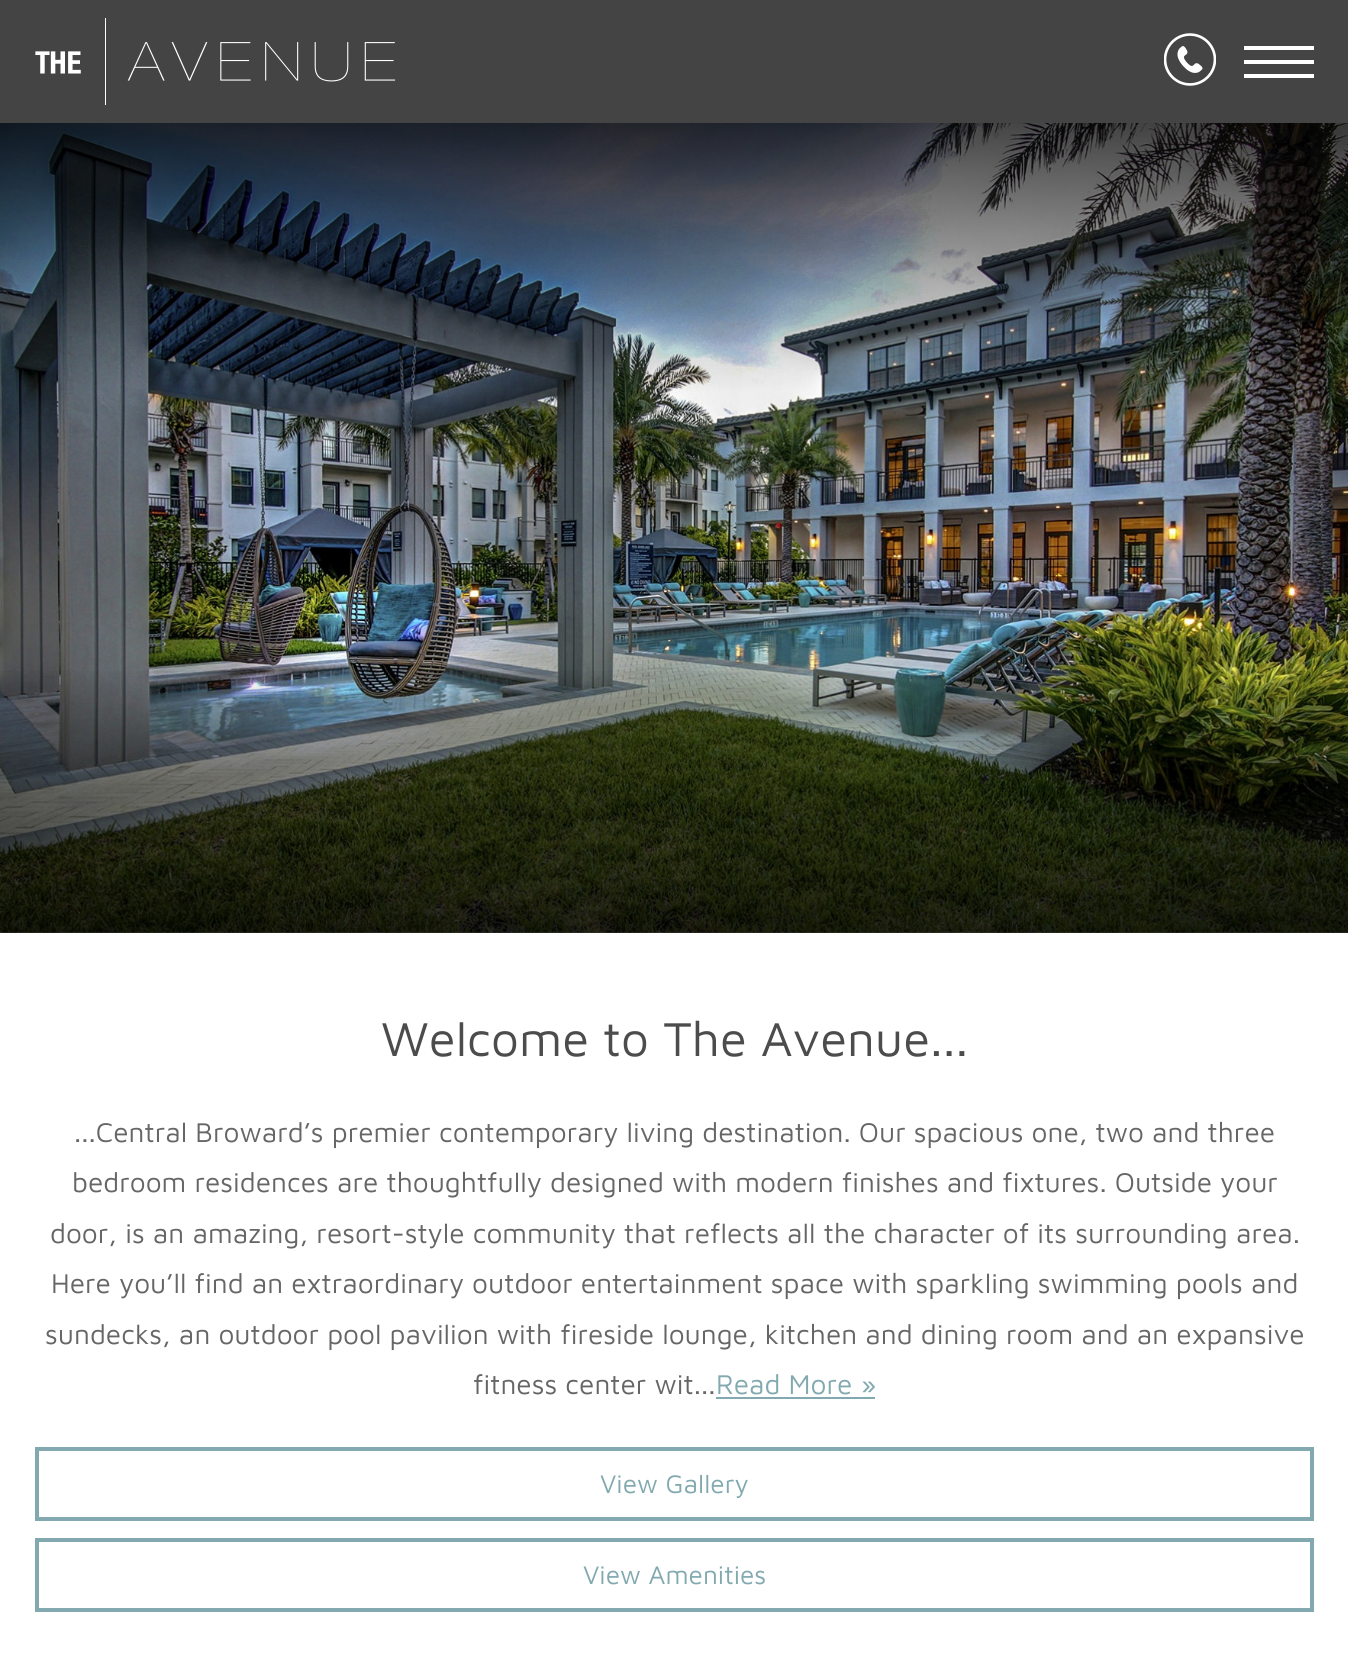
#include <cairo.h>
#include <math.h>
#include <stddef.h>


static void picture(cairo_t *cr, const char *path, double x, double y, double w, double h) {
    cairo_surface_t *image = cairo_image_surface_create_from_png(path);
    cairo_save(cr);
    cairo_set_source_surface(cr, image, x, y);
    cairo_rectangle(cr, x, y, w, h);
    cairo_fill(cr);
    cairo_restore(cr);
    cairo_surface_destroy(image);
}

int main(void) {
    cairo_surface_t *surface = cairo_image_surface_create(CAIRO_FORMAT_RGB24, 1348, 1669);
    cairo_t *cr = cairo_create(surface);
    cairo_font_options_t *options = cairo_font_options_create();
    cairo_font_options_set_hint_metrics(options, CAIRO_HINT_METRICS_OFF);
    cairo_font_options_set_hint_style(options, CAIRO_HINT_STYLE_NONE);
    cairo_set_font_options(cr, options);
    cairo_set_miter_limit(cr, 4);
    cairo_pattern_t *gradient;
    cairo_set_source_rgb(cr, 1, 1, 1);
    cairo_paint(cr);
    cairo_set_source_rgb(cr, 0.267, 0.267, 0.267);
    cairo_rectangle(cr, 0, 0, 1348, 123);
    cairo_fill(cr);
    picture(cr, "img1.png", 35, 18, 361, 87);
    picture(cr, "img2.png", 1164, 33, 52, 53);
    cairo_set_source_rgb(cr, 1, 1, 1);
    cairo_rectangle(cr, 1244, 46, 70, 4);
    cairo_fill(cr);
    cairo_rectangle(cr, 1244, 60, 70, 4);
    cairo_fill(cr);
    cairo_rectangle(cr, 1244, 74, 70, 4);
    cairo_fill(cr);
    picture(cr, "img3.png", 0, 123, 1348, 810);
    gradient = cairo_pattern_create_linear(675, 663, 675, 935);
    cairo_pattern_add_color_stop_rgba(gradient, 0, 0, 0, 0, 0);
    cairo_pattern_add_color_stop_rgba(gradient, 1, 0, 0, 0, 0.7);
    cairo_set_source(cr, gradient);
    cairo_pattern_destroy(gradient);
    cairo_rectangle(cr, 0, 671, 1348, 262);
    cairo_fill(cr);
    cairo_select_font_face(cr, "Maven Pro", CAIRO_FONT_SLANT_NORMAL, CAIRO_FONT_WEIGHT_NORMAL);
    cairo_set_font_size(cr, 49);
    cairo_set_source_rgb(cr, 0.302, 0.298, 0.298);
    cairo_move_to(cr, 381, 1056);
    cairo_show_text(cr, "Welcome to The Avenue...");
    cairo_set_font_size(cr, 28);
    cairo_set_source_rgb(cr, 0.4, 0.4, 0.4);
    cairo_move_to(cr, 74, 1142);
    cairo_show_text(cr, "...Central Broward’s premier contemporary living destination. Our spacious one, two and three");
    cairo_move_to(cr, 72, 1192);
    cairo_show_text(cr, "bedroom residences are thoughtfully designed with modern finishes and fixtures. Outside your");
    cairo_move_to(cr, 50, 1243);
    cairo_show_text(cr, "door, is an amazing, resort-style community that reflects all the character of its surrounding area.");
    cairo_move_to(cr, 51, 1293);
    cairo_show_text(cr, "Here you’ll find an extraordinary outdoor entertainment space with sparkling swimming pools and");
    cairo_move_to(cr, 45, 1344);
    cairo_show_text(cr, "sundecks, an outdoor pool pavilion with fireside lounge, kitchen and dining room and an expansive");
    cairo_move_to(cr, 473, 1394);
    cairo_show_text(cr, "fitness center wit...");
    cairo_set_source_rgb(cr, 0.506, 0.663, 0.686);
    cairo_move_to(cr, 716, 1394);
    cairo_show_text(cr, "Read More »");
    cairo_rectangle(cr, 716, 1397, 159, 2);
    cairo_fill(cr);
    cairo_rectangle(cr, 37, 1449, 1275, 70);
    cairo_set_line_width(cr, 4);
    cairo_stroke(cr);
    cairo_set_font_size(cr, 26.25);
    cairo_move_to(cr, 600, 1493);
    cairo_show_text(cr, "View Gallery");
    cairo_rectangle(cr, 37, 1540, 1275, 70);
    cairo_stroke(cr);
    cairo_move_to(cr, 583, 1584);
    cairo_show_text(cr, "View Amenities");
    cairo_surface_write_to_png(surface, "page.png");
    cairo_font_options_destroy(options);
    cairo_destroy(cr);
    cairo_surface_destroy(surface);
    return 0;
}
